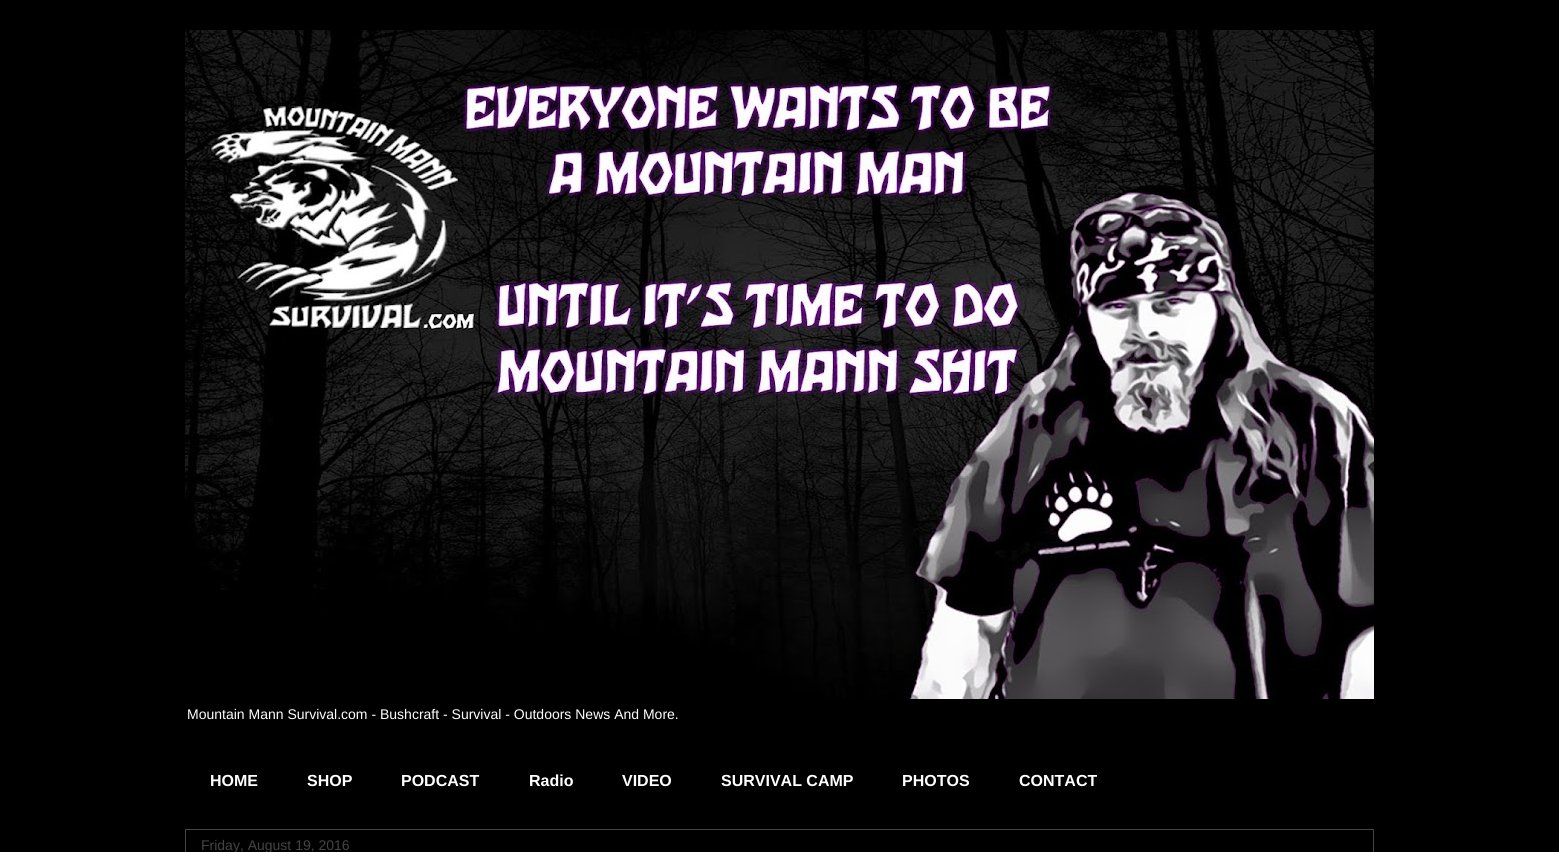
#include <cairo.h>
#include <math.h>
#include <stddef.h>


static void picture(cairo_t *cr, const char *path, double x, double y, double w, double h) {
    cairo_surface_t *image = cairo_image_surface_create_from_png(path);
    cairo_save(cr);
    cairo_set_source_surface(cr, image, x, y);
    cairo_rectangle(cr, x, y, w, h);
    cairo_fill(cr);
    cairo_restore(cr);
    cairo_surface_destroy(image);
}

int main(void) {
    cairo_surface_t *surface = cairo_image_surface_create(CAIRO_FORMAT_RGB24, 1559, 852);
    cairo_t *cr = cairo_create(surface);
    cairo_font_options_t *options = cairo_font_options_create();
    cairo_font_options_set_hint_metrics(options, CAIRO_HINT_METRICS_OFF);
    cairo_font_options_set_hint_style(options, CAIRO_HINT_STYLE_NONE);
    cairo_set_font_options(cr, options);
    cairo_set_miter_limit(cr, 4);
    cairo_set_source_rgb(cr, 0, 0, 0);
    cairo_paint(cr);
    picture(cr, "img1.png", 185, 30, 1189, 669);
    cairo_select_font_face(cr, "Liberation Sans", CAIRO_FONT_SLANT_NORMAL, CAIRO_FONT_WEIGHT_NORMAL);
    cairo_set_font_size(cr, 14);
    cairo_set_source_rgb(cr, 1, 1, 1);
    cairo_move_to(cr, 187, 719);
    cairo_show_text(cr, "Mountain Mann Survival.com - Bushcraft - Survival - Outdoors News And More.");
    cairo_select_font_face(cr, "Liberation Sans", CAIRO_FONT_SLANT_NORMAL, CAIRO_FONT_WEIGHT_BOLD);
    cairo_set_font_size(cr, 16);
    cairo_move_to(cr, 210, 786);
    cairo_show_text(cr, "HOME");
    cairo_move_to(cr, 307, 786);
    cairo_show_text(cr, "SHOP");
    cairo_move_to(cr, 401, 786);
    cairo_show_text(cr, "PODCAST");
    cairo_move_to(cr, 529, 786);
    cairo_show_text(cr, "Radio");
    cairo_move_to(cr, 622, 786);
    cairo_show_text(cr, "VIDEO");
    cairo_move_to(cr, 721, 786);
    cairo_show_text(cr, "SURVIVAL CAMP");
    cairo_move_to(cr, 902, 786);
    cairo_show_text(cr, "PHOTOS");
    cairo_move_to(cr, 1019, 786);
    cairo_show_text(cr, "CONTACT");
    cairo_rectangle(cr, 185.5, 829.5, 1188, 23);
    cairo_set_source_rgb(cr, 0.267, 0.267, 0.267);
    cairo_set_line_width(cr, 1);
    cairo_stroke(cr);
    cairo_select_font_face(cr, "Liberation Sans", CAIRO_FONT_SLANT_NORMAL, CAIRO_FONT_WEIGHT_NORMAL);
    cairo_set_font_size(cr, 14);
    cairo_move_to(cr, 201, 850);
    cairo_show_text(cr, "Friday, August 19, 2016");
    cairo_surface_write_to_png(surface, "page.png");
    cairo_font_options_destroy(options);
    cairo_destroy(cr);
    cairo_surface_destroy(surface);
    return 0;
}
